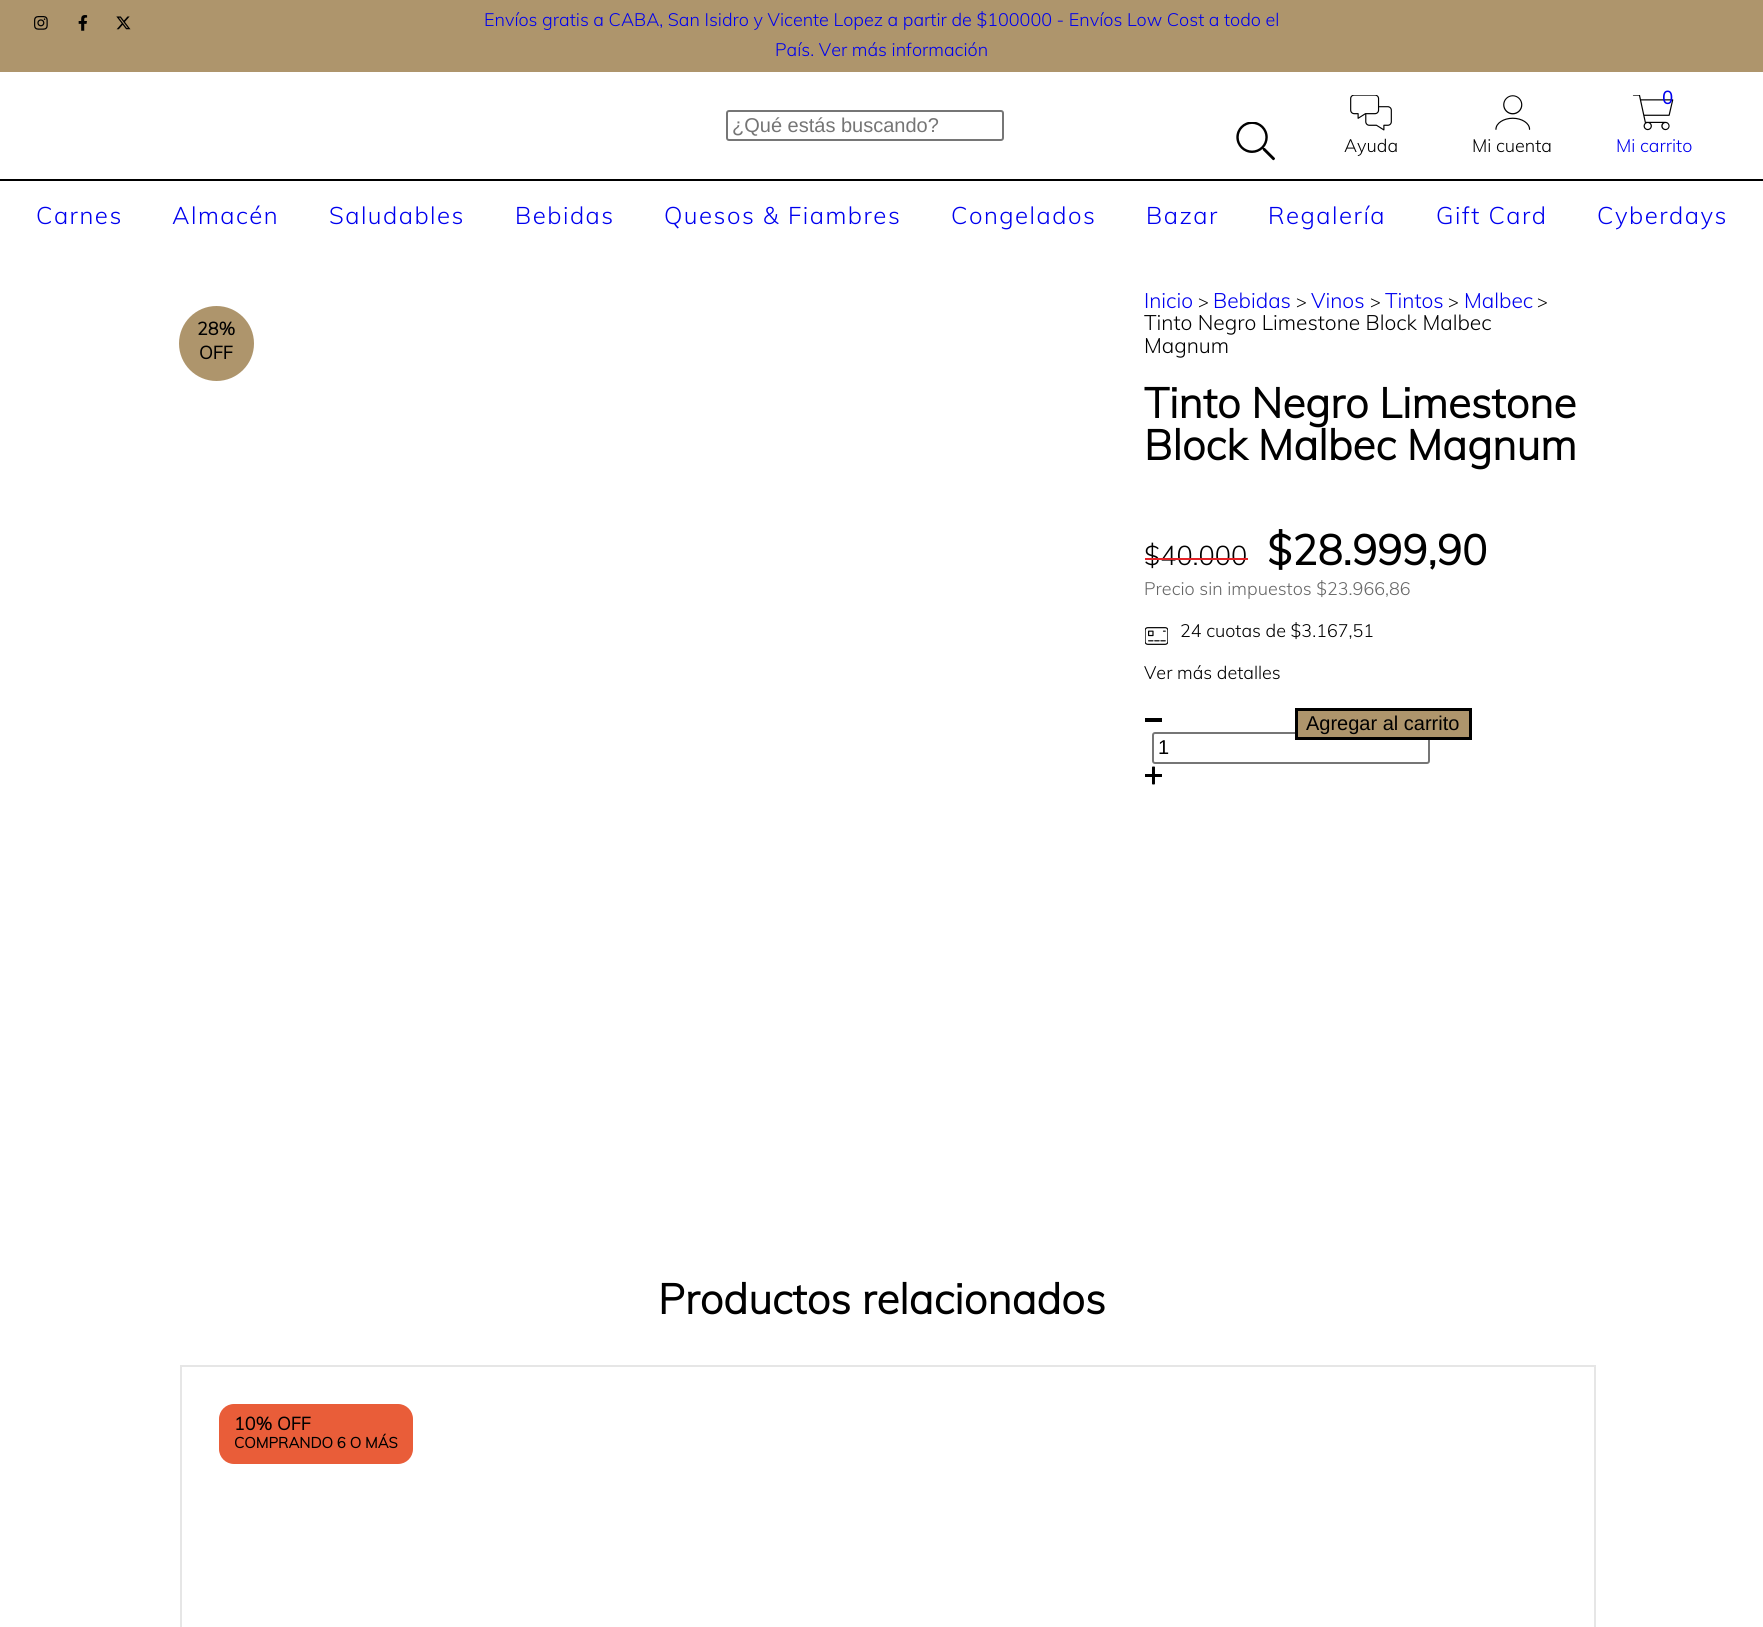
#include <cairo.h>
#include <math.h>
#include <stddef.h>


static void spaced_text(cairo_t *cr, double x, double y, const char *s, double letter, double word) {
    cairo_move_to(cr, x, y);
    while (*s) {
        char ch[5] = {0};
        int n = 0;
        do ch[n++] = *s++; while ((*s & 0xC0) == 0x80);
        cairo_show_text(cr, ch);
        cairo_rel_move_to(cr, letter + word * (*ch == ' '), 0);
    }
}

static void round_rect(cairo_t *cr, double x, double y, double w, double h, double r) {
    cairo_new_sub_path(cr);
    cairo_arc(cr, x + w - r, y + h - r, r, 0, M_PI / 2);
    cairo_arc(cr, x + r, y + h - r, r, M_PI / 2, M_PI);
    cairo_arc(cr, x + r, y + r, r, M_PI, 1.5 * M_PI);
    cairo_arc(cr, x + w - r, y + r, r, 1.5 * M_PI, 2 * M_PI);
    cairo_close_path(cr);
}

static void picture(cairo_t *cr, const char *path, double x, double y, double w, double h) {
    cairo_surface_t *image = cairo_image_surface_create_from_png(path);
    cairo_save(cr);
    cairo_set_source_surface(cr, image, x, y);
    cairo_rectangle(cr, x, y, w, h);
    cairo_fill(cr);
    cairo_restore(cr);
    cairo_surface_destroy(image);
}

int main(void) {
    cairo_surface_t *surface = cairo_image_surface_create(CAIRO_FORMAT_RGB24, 1763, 1627);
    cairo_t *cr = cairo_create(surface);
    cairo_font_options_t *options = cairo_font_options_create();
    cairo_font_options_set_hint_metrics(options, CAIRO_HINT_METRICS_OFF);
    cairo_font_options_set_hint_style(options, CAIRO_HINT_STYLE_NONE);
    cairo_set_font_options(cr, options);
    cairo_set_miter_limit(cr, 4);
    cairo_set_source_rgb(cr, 1, 1, 1);
    cairo_paint(cr);
    cairo_set_source_rgb(cr, 0.682, 0.584, 0.424);
    cairo_rectangle(cr, 0, 0, 1763, 72);
    cairo_fill(cr);
    picture(cr, "img1.png", 34, 16, 14, 14);
    picture(cr, "img2.png", 78, 15, 10, 16);
    picture(cr, "img3.png", 116, 16, 15, 14);
    cairo_select_font_face(cr, "Muli Light", CAIRO_FONT_SLANT_NORMAL, CAIRO_FONT_WEIGHT_NORMAL);
    cairo_set_font_size(cr, 18);
    cairo_set_source_rgb(cr, 0, 0, 0.933);
    cairo_move_to(cr, 484, 26);
    cairo_show_text(cr, "Envíos gratis a CABA, San Isidro y Vicente Lopez a partir de $100000 - Envíos Low Cost a todo el");
    cairo_move_to(cr, 775, 56);
    cairo_show_text(cr, "País. Ver más información");
    round_rect(cr, 727, 111, 276, 29, 2);
    cairo_set_source_rgb(cr, 0.463, 0.463, 0.463);
    cairo_stroke(cr);
    cairo_select_font_face(cr, "Liberation Sans", CAIRO_FONT_SLANT_NORMAL, CAIRO_FONT_WEIGHT_NORMAL);
    cairo_set_font_size(cr, 20);
    cairo_set_source_rgb(cr, 0.459, 0.459, 0.459);
    cairo_move_to(cr, 732, 132);
    cairo_show_text(cr, "¿Qué estás buscando?");
    picture(cr, "img4.png", 1236, 122, 39, 39);
    picture(cr, "img5.png", 1350, 95, 42, 36);
    cairo_select_font_face(cr, "Muli Light", CAIRO_FONT_SLANT_NORMAL, CAIRO_FONT_WEIGHT_NORMAL);
    cairo_set_font_size(cr, 18);
    cairo_set_source_rgb(cr, 0, 0, 0);
    cairo_move_to(cr, 1344, 152);
    cairo_show_text(cr, "Ayuda");
    picture(cr, "img6.png", 1495, 95, 36, 35);
    cairo_move_to(cr, 1472, 152);
    cairo_show_text(cr, "Mi cuenta");
    picture(cr, "img7.png", 1632, 95, 42, 36);
    cairo_select_font_face(cr, "Muli", CAIRO_FONT_SLANT_NORMAL, CAIRO_FONT_WEIGHT_BOLD);
    cairo_set_source_rgb(cr, 0, 0, 0.933);
    cairo_move_to(cr, 1662, 104);
    cairo_show_text(cr, "0");
    cairo_select_font_face(cr, "Muli Light", CAIRO_FONT_SLANT_NORMAL, CAIRO_FONT_WEIGHT_NORMAL);
    cairo_move_to(cr, 1616, 152);
    cairo_show_text(cr, "Mi carrito");
    cairo_set_source_rgb(cr, 0, 0, 0);
    cairo_rectangle(cr, 0, 179, 1763, 2);
    cairo_fill(cr);
    cairo_set_font_size(cr, 24);
    cairo_set_source_rgb(cr, 0, 0, 0.933);
    spaced_text(cr, 36, 224, "Carnes", 1.5, 0);
    spaced_text(cr, 172, 224, "Almacén", 1.5, 0);
    spaced_text(cr, 329, 224, "Saludables", 1.5, 0);
    spaced_text(cr, 515, 224, "Bebidas", 1.5, 0);
    spaced_text(cr, 664, 224, "Quesos & Fiambres", 1.5, 0);
    spaced_text(cr, 951, 224, "Congelados", 1.5, 0);
    spaced_text(cr, 1146, 224, "Bazar", 1.5, 0);
    spaced_text(cr, 1268, 224, "Regalería", 1.5, 0);
    spaced_text(cr, 1436, 224, "Gift Card", 1.5, 0);
    spaced_text(cr, 1597, 224, "Cyberdays", 1.5, 0);
    cairo_set_source_rgb(cr, 0.682, 0.584, 0.424);
    cairo_new_path(cr);
    cairo_arc(cr, 216.5, 343.5, 37.5, 0, 2 * M_PI);
    cairo_fill(cr);
    cairo_select_font_face(cr, "Muli", CAIRO_FONT_SLANT_NORMAL, CAIRO_FONT_WEIGHT_BOLD);
    cairo_set_font_size(cr, 18);
    cairo_set_source_rgb(cr, 0, 0, 0);
    cairo_move_to(cr, 197, 335);
    cairo_show_text(cr, "28%");
    cairo_move_to(cr, 199, 359);
    cairo_show_text(cr, "OFF");
    cairo_select_font_face(cr, "Muli Light", CAIRO_FONT_SLANT_NORMAL, CAIRO_FONT_WEIGHT_NORMAL);
    cairo_set_font_size(cr, 21);
    cairo_set_source_rgb(cr, 0, 0, 0.933);
    cairo_move_to(cr, 1144, 308);
    cairo_show_text(cr, "Inicio");
    cairo_set_font_size(cr, 18);
    cairo_set_source_rgb(cr, 0, 0, 0);
    cairo_move_to(cr, 1198, 308);
    cairo_show_text(cr, ">");
    cairo_set_font_size(cr, 21);
    cairo_set_source_rgb(cr, 0, 0, 0.933);
    cairo_move_to(cr, 1213, 308);
    cairo_show_text(cr, "Bebidas");
    cairo_set_font_size(cr, 18);
    cairo_set_source_rgb(cr, 0, 0, 0);
    cairo_move_to(cr, 1296, 308);
    cairo_show_text(cr, ">");
    cairo_set_font_size(cr, 21);
    cairo_set_source_rgb(cr, 0, 0, 0.933);
    cairo_move_to(cr, 1311, 308);
    cairo_show_text(cr, "Vinos");
    cairo_set_font_size(cr, 18);
    cairo_set_source_rgb(cr, 0, 0, 0);
    cairo_move_to(cr, 1370, 308);
    cairo_show_text(cr, ">");
    cairo_set_font_size(cr, 21);
    cairo_set_source_rgb(cr, 0, 0, 0.933);
    cairo_move_to(cr, 1385, 308);
    cairo_show_text(cr, "Tintos");
    cairo_set_font_size(cr, 18);
    cairo_set_source_rgb(cr, 0, 0, 0);
    cairo_move_to(cr, 1448, 308);
    cairo_show_text(cr, ">");
    cairo_set_font_size(cr, 21);
    cairo_set_source_rgb(cr, 0, 0, 0.933);
    cairo_move_to(cr, 1464, 308);
    cairo_show_text(cr, "Malbec");
    cairo_set_font_size(cr, 18);
    cairo_set_source_rgb(cr, 0, 0, 0);
    cairo_move_to(cr, 1537, 308);
    cairo_show_text(cr, ">");
    cairo_set_font_size(cr, 21);
    cairo_move_to(cr, 1144, 330);
    cairo_show_text(cr, "Tinto Negro Limestone Block Malbec");
    cairo_move_to(cr, 1144, 353);
    cairo_show_text(cr, "Magnum");
    cairo_select_font_face(cr, "Muli", CAIRO_FONT_SLANT_NORMAL, CAIRO_FONT_WEIGHT_BOLD);
    cairo_set_font_size(cr, 42);
    cairo_move_to(cr, 1144, 418);
    cairo_show_text(cr, "Tinto Negro Limestone");
    cairo_move_to(cr, 1144, 460);
    cairo_show_text(cr, "Block Malbec Magnum");
    cairo_select_font_face(cr, "Muli Light", CAIRO_FONT_SLANT_NORMAL, CAIRO_FONT_WEIGHT_NORMAL);
    cairo_set_font_size(cr, 27);
    cairo_move_to(cr, 1144, 565);
    cairo_show_text(cr, "$40.000");
    cairo_set_source_rgb(cr, 0.89, 0.133, 0.153);
    cairo_rectangle(cr, 1145, 558, 103, 2);
    cairo_fill(cr);
    cairo_select_font_face(cr, "Muli", CAIRO_FONT_SLANT_NORMAL, CAIRO_FONT_WEIGHT_BOLD);
    cairo_set_font_size(cr, 42);
    cairo_set_source_rgb(cr, 0, 0, 0);
    cairo_move_to(cr, 1267, 565);
    cairo_show_text(cr, "$28.999,90");
    cairo_select_font_face(cr, "Muli Light", CAIRO_FONT_SLANT_NORMAL, CAIRO_FONT_WEIGHT_NORMAL);
    cairo_set_font_size(cr, 18);
    cairo_set_source_rgb(cr, 0.4, 0.4, 0.4);
    cairo_move_to(cr, 1144, 595);
    cairo_show_text(cr, "Precio sin impuestos $23.966,86");
    picture(cr, "img8.png", 1145, 627, 23, 18);
    cairo_set_source_rgb(cr, 0, 0, 0);
    cairo_move_to(cr, 1180, 637);
    cairo_show_text(cr, "24 cuotas de $3.167,51");
    cairo_move_to(cr, 1144, 679);
    cairo_show_text(cr, "Ver más detalles");
    round_rect(cr, 1153, 733, 276, 30, 2);
    cairo_set_source_rgb(cr, 0.463, 0.463, 0.463);
    cairo_stroke(cr);
    cairo_set_source_rgb(cr, 0.682, 0.584, 0.424);
    cairo_rectangle(cr, 1296.5, 709.5, 174, 29);
    cairo_fill_preserve(cr);
    cairo_set_source_rgb(cr, 0, 0, 0);
    cairo_set_line_width(cr, 3);
    cairo_stroke(cr);
    cairo_select_font_face(cr, "Liberation Sans", CAIRO_FONT_SLANT_NORMAL, CAIRO_FONT_WEIGHT_NORMAL);
    cairo_set_font_size(cr, 20);
    cairo_move_to(cr, 1306, 730);
    cairo_show_text(cr, "Agregar al carrito");
    cairo_rectangle(cr, 1145, 718, 17, 4);
    cairo_fill(cr);
    cairo_move_to(cr, 1158, 754);
    cairo_show_text(cr, "1");
    picture(cr, "img9.png", 1145, 766, 17, 19);
    cairo_select_font_face(cr, "Muli", CAIRO_FONT_SLANT_NORMAL, CAIRO_FONT_WEIGHT_BOLD);
    cairo_set_font_size(cr, 42);
    cairo_move_to(cr, 658, 1314);
    cairo_show_text(cr, "Productos relacionados");
    cairo_rectangle(cr, 181, 1366, 1414, 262);
    cairo_set_source_rgb(cr, 0.902, 0.902, 0.902);
    cairo_set_line_width(cr, 2);
    cairo_stroke(cr);
    cairo_set_source_rgb(cr, 0.914, 0.365, 0.224);
    round_rect(cr, 219, 1404, 194, 60, 15);
    cairo_fill(cr);
    cairo_set_font_size(cr, 18);
    cairo_set_source_rgb(cr, 0, 0, 0);
    cairo_move_to(cr, 234, 1430);
    cairo_show_text(cr, "10% OFF");
    cairo_set_font_size(cr, 15);
    cairo_move_to(cr, 234, 1448);
    cairo_show_text(cr, "COMPRANDO 6 O MÁS");
    cairo_surface_write_to_png(surface, "page.png");
    cairo_font_options_destroy(options);
    cairo_destroy(cr);
    cairo_surface_destroy(surface);
    return 0;
}
